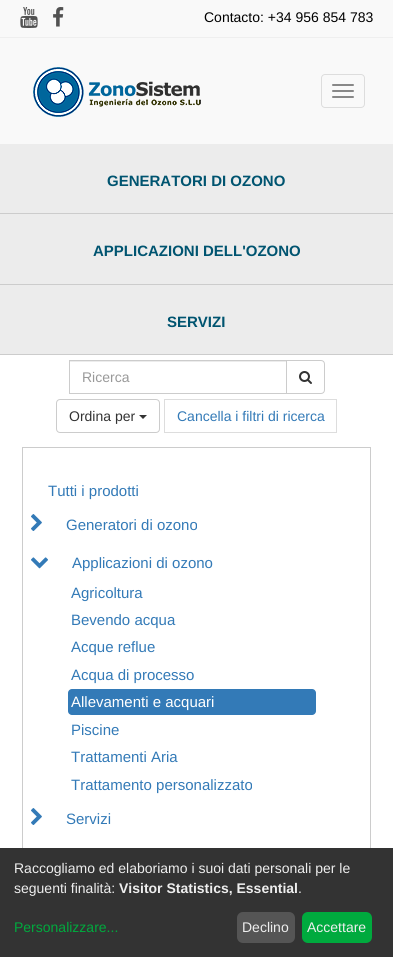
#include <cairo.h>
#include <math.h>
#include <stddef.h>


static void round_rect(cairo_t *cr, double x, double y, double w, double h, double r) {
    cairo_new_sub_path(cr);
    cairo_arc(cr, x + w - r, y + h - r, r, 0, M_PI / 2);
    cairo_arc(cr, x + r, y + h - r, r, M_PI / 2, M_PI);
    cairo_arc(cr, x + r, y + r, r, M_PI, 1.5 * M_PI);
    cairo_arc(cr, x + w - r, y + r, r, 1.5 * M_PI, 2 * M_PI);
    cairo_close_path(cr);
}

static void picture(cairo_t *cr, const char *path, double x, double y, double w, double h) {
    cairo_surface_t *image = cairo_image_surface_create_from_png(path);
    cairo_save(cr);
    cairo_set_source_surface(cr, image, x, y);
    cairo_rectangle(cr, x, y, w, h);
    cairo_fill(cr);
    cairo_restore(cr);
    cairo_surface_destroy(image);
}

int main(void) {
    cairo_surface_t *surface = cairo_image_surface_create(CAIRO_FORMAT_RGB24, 393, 957);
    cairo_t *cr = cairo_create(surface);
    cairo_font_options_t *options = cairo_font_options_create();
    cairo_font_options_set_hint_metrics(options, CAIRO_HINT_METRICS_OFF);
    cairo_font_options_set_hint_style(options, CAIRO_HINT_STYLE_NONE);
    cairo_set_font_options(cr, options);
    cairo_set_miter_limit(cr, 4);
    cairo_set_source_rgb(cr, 1, 1, 1);
    cairo_paint(cr);
    cairo_set_source_rgb(cr, 0.973, 0.973, 0.973);
    cairo_rectangle(cr, 0, 0, 393, 37);
    cairo_fill(cr);
    cairo_set_source_rgb(cr, 0.937, 0.937, 0.937);
    cairo_rectangle(cr, 0, 37, 393, 1);
    cairo_fill(cr);
    picture(cr, "img1.png", 20, 7, 18, 21);
    picture(cr, "img2.png", 53, 7, 11, 20);
    cairo_select_font_face(cr, "Liberation Sans", CAIRO_FONT_SLANT_NORMAL, CAIRO_FONT_WEIGHT_NORMAL);
    cairo_set_font_size(cr, 14);
    cairo_set_source_rgb(cr, 0, 0, 0);
    cairo_move_to(cr, 204, 22);
    cairo_show_text(cr, "Contacto: +34 956 854 783");
    cairo_set_source_rgb(cr, 0.973, 0.973, 0.973);
    cairo_rectangle(cr, 0, 38, 393, 106);
    cairo_fill(cr);
    picture(cr, "img3.png", 33, 67, 168, 50);
    round_rect(cr, 321.5, 74.5, 43, 33, 3.5);
    cairo_set_source_rgb(cr, 0.867, 0.867, 0.867);
    cairo_set_line_width(cr, 1);
    cairo_stroke(cr);
    cairo_set_source_rgb(cr, 0.533, 0.533, 0.533);
    round_rect(cr, 332, 84, 22, 2, 1);
    cairo_fill(cr);
    round_rect(cr, 332, 90, 22, 2, 1);
    cairo_fill(cr);
    round_rect(cr, 332, 96, 22, 2, 1);
    cairo_fill(cr);
    cairo_set_source_rgb(cr, 0.925, 0.925, 0.925);
    cairo_rectangle(cr, 0, 144, 393, 210);
    cairo_fill(cr);
    cairo_set_source_rgb(cr, 0.8, 0.8, 0.8);
    cairo_rectangle(cr, 0, 213, 393, 1);
    cairo_fill(cr);
    cairo_select_font_face(cr, "Liberation Sans", CAIRO_FONT_SLANT_NORMAL, CAIRO_FONT_WEIGHT_BOLD);
    cairo_set_font_size(cr, 15);
    cairo_set_source_rgb(cr, 0, 0.329, 0.439);
    cairo_move_to(cr, 107, 186);
    cairo_show_text(cr, "GENERATORI DI OZONO");
    cairo_set_source_rgb(cr, 0.8, 0.8, 0.8);
    cairo_rectangle(cr, 0, 284, 393, 1);
    cairo_fill(cr);
    cairo_set_source_rgb(cr, 0, 0.329, 0.439);
    cairo_move_to(cr, 93, 256);
    cairo_show_text(cr, "APPLICAZIONI DELL'OZONO");
    cairo_set_source_rgb(cr, 0.8, 0.8, 0.8);
    cairo_rectangle(cr, 0, 354, 393, 1);
    cairo_fill(cr);
    cairo_set_source_rgb(cr, 0, 0.329, 0.439);
    cairo_move_to(cr, 167, 327);
    cairo_show_text(cr, "SERVIZI");
    cairo_set_source_rgb(cr, 0.925, 0.925, 0.925);
    cairo_rectangle(cr, 70, 361, 216, 1);
    cairo_fill(cr);
    cairo_rectangle(cr, 69.5, 360.5, 217, 33);
    cairo_set_source_rgb(cr, 0.8, 0.8, 0.8);
    cairo_stroke(cr);
    cairo_select_font_face(cr, "Liberation Sans", CAIRO_FONT_SLANT_NORMAL, CAIRO_FONT_WEIGHT_NORMAL);
    cairo_set_font_size(cr, 14);
    cairo_set_source_rgb(cr, 0.6, 0.6, 0.6);
    cairo_move_to(cr, 82, 382);
    cairo_show_text(cr, "Ricerca");
    cairo_set_source_rgb(cr, 1, 1, 1);
    cairo_new_path(cr);
    cairo_move_to(cr, 286.5, 360.5);
    cairo_line_to(cr, 321, 360.5);
    cairo_curve_to(cr, 323, 360.5, 324.5, 362, 324.5, 364);
    cairo_line_to(cr, 324.5, 390);
    cairo_curve_to(cr, 324.5, 392, 323, 393.5, 321, 393.5);
    cairo_line_to(cr, 286.5, 393.5);
    cairo_close_path(cr);
    cairo_fill_preserve(cr);
    cairo_set_source_rgb(cr, 0.8, 0.8, 0.8);
    cairo_stroke(cr);
    picture(cr, "img4.png", 299, 371, 13, 13);
    round_rect(cr, 56.5, 399.5, 103, 33, 3.5);
    cairo_stroke(cr);
    cairo_set_source_rgb(cr, 0.2, 0.2, 0.2);
    cairo_move_to(cr, 69, 421);
    cairo_show_text(cr, "Ordina per");
    cairo_new_path(cr);
    cairo_move_to(cr, 139, 415);
    cairo_line_to(cr, 147, 415);
    cairo_line_to(cr, 143, 419);
    cairo_close_path(cr);
    cairo_fill(cr);
    cairo_rectangle(cr, 164.5, 399.5, 172, 33);
    cairo_set_source_rgb(cr, 0.867, 0.867, 0.867);
    cairo_stroke(cr);
    cairo_set_source_rgb(cr, 0.2, 0.478, 0.718);
    cairo_move_to(cr, 177, 421);
    cairo_show_text(cr, "Cancella i filtri di ricerca");
    cairo_rectangle(cr, 22.5, 447.5, 348, 402);
    cairo_set_source_rgb(cr, 0.8, 0.8, 0.8);
    cairo_stroke(cr);
    cairo_set_font_size(cr, 15);
    cairo_set_source_rgb(cr, 0.2, 0.478, 0.718);
    cairo_move_to(cr, 48, 496);
    cairo_show_text(cr, "Tutti i prodotti");
    picture(cr, "img5.png", 31, 514, 11, 17);
    cairo_move_to(cr, 66, 530);
    cairo_show_text(cr, "Generatori di ozono");
    picture(cr, "img6.png", 31, 557, 17, 12);
    cairo_move_to(cr, 72, 568);
    cairo_show_text(cr, "Applicazioni di ozono");
    cairo_move_to(cr, 71, 598);
    cairo_show_text(cr, "Agricoltura");
    cairo_move_to(cr, 71, 625);
    cairo_show_text(cr, "Bevendo acqua");
    cairo_move_to(cr, 71, 652);
    cairo_show_text(cr, "Acque reflue");
    cairo_move_to(cr, 71, 680);
    cairo_show_text(cr, "Acqua di processo");
    round_rect(cr, 68, 689, 248, 26, 4);
    cairo_fill(cr);
    cairo_set_source_rgb(cr, 1, 1, 1);
    cairo_move_to(cr, 71, 707);
    cairo_show_text(cr, "Allevamenti e acquari");
    cairo_set_source_rgb(cr, 0.2, 0.478, 0.718);
    cairo_move_to(cr, 71, 735);
    cairo_show_text(cr, "Piscine");
    cairo_move_to(cr, 71, 762);
    cairo_show_text(cr, "Trattamenti Aria");
    cairo_move_to(cr, 71, 790);
    cairo_show_text(cr, "Trattamento personalizzato");
    picture(cr, "img5.png", 31, 808, 11, 17);
    cairo_move_to(cr, 66, 824);
    cairo_show_text(cr, "Servizi");
    cairo_set_source_rgb(cr, 0.2, 0.2, 0.2);
    cairo_rectangle(cr, 0, 848, 393, 109);
    cairo_fill(cr);
    cairo_set_font_size(cr, 14);
    cairo_set_source_rgb(cr, 0.933, 0.933, 0.933);
    cairo_move_to(cr, 14, 873);
    cairo_show_text(cr, "Raccogliamo ed elaboriamo i suoi dati personali per le");
    cairo_move_to(cr, 14, 893);
    cairo_show_text(cr, "seguenti finalità:");
    cairo_select_font_face(cr, "Liberation Sans", CAIRO_FONT_SLANT_NORMAL, CAIRO_FONT_WEIGHT_BOLD);
    cairo_move_to(cr, 119, 893);
    cairo_show_text(cr, "Visitor Statistics, Essential");
    cairo_select_font_face(cr, "Liberation Sans", CAIRO_FONT_SLANT_NORMAL, CAIRO_FONT_WEIGHT_NORMAL);
    cairo_move_to(cr, 298, 893);
    cairo_show_text(cr, ".");
    cairo_set_source_rgb(cr, 0, 0.667, 0.243);
    cairo_move_to(cr, 14, 932);
    cairo_show_text(cr, "Personalizzare...");
    cairo_set_source_rgb(cr, 0.333, 0.333, 0.333);
    round_rect(cr, 237, 912, 58, 31, 6);
    cairo_fill(cr);
    cairo_set_source_rgb(cr, 0.933, 0.933, 0.933);
    cairo_move_to(cr, 242, 932);
    cairo_show_text(cr, "Declino");
    cairo_set_source_rgb(cr, 0, 0.667, 0.243);
    round_rect(cr, 302, 912, 70, 31, 6);
    cairo_fill(cr);
    cairo_set_source_rgb(cr, 0.933, 0.933, 0.933);
    cairo_move_to(cr, 307, 932);
    cairo_show_text(cr, "Accettare");
    cairo_surface_write_to_png(surface, "page.png");
    cairo_font_options_destroy(options);
    cairo_destroy(cr);
    cairo_surface_destroy(surface);
    return 0;
}
